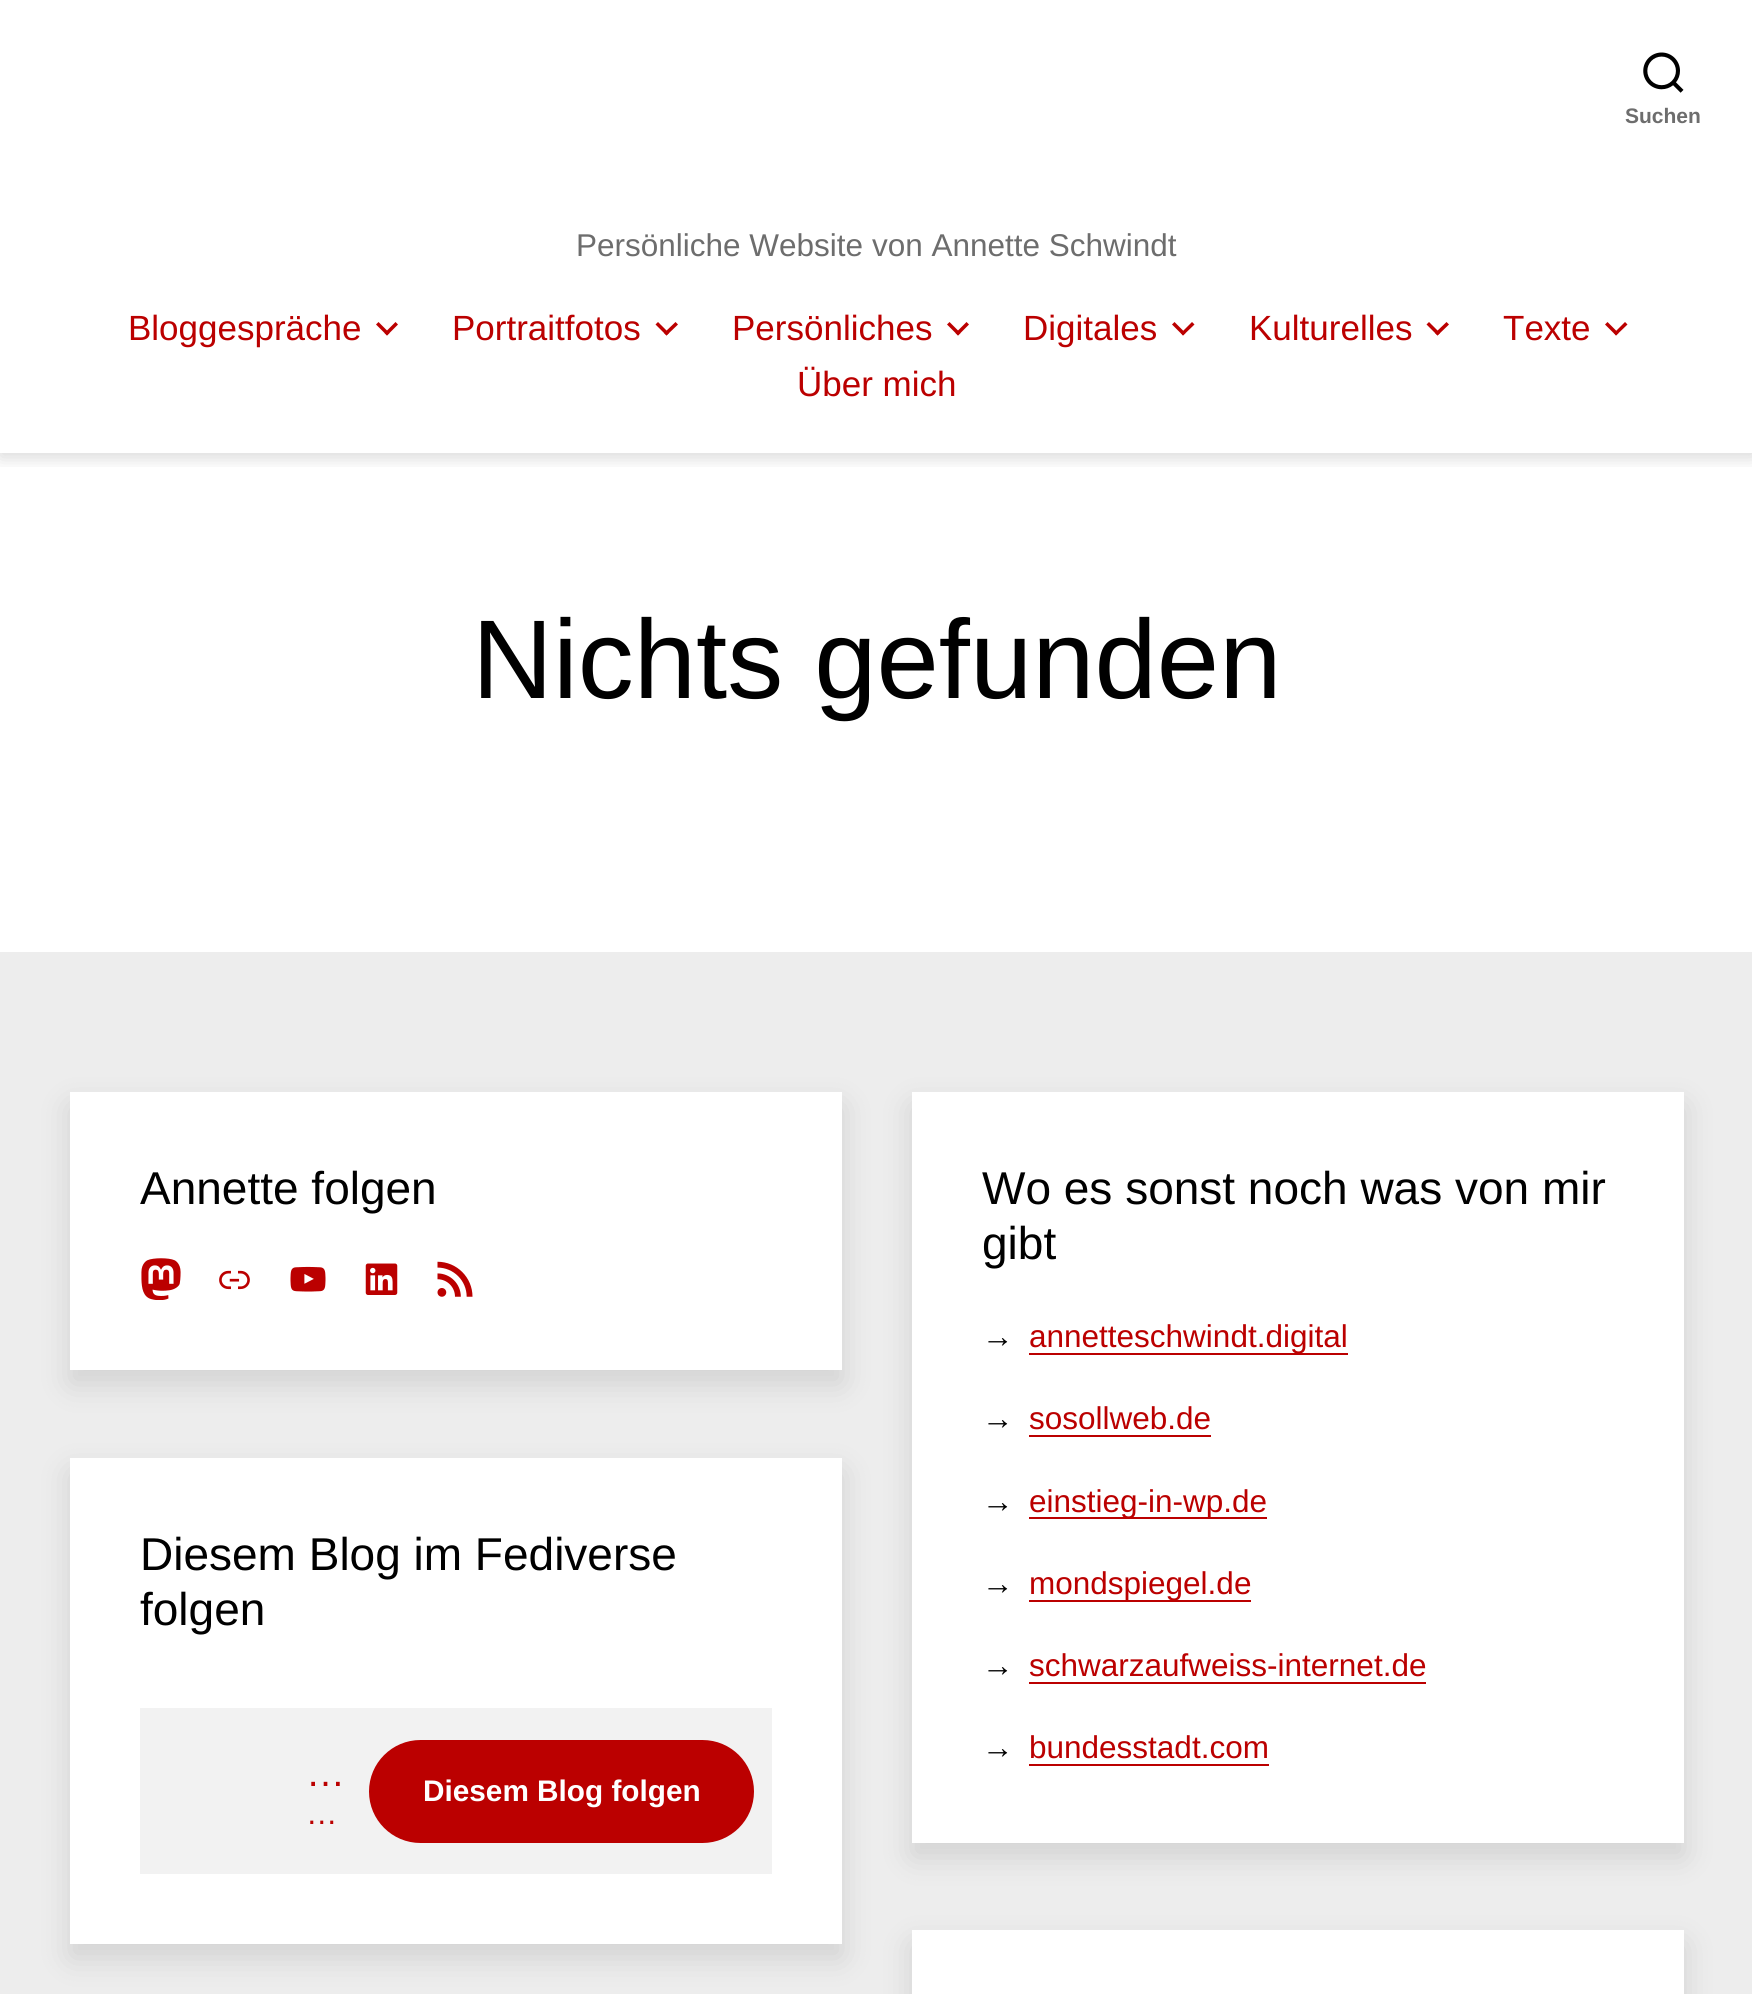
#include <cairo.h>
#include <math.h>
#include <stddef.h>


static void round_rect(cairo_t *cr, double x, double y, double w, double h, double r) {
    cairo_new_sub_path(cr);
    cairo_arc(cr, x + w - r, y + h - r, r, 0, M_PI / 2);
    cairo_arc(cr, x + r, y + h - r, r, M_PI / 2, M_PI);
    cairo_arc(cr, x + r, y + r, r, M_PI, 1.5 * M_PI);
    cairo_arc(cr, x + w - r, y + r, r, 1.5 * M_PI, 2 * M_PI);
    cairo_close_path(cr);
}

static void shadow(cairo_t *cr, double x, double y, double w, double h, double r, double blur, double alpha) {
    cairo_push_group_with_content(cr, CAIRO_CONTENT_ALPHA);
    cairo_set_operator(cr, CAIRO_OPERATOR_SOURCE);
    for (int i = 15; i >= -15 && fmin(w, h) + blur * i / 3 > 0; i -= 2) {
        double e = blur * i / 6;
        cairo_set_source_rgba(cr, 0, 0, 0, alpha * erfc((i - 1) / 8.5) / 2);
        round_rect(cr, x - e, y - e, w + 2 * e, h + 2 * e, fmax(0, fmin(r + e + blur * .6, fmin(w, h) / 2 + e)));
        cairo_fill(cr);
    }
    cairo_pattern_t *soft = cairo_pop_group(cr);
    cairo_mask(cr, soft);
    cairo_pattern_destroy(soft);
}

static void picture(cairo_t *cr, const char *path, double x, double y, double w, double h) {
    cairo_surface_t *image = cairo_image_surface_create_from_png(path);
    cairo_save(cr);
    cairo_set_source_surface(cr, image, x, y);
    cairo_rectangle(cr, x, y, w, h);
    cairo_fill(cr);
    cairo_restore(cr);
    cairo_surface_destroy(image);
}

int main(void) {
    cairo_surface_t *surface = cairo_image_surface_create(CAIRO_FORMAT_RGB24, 1752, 1994);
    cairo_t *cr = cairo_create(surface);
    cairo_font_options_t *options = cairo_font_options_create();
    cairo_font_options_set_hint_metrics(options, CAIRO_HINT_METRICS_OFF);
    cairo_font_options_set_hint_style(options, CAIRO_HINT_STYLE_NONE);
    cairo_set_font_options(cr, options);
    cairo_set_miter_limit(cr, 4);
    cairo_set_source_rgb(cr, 1, 1, 1);
    cairo_paint(cr);
    cairo_save(cr);
    cairo_rectangle(cr, 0, 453, 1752, 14);
    cairo_clip(cr);
    cairo_set_source_rgb(cr, 0, 0, 0);
    shadow(cr, 0, 4, 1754, 453, 0, 9, 0.16);
    cairo_restore(cr);
    picture(cr, "img1.png", 1643, 52, 41, 41);
    cairo_select_font_face(cr, "Liberation Sans", CAIRO_FONT_SLANT_NORMAL, CAIRO_FONT_WEIGHT_BOLD);
    cairo_set_font_size(cr, 21);
    cairo_set_source_rgb(cr, 0.427, 0.427, 0.427);
    cairo_move_to(cr, 1625, 123);
    cairo_show_text(cr, "Suchen");
    cairo_select_font_face(cr, "Liberation Sans", CAIRO_FONT_SLANT_NORMAL, CAIRO_FONT_WEIGHT_NORMAL);
    cairo_set_font_size(cr, 35);
    cairo_set_source_rgb(cr, 0.733, 0, 0);
    cairo_move_to(cr, 128, 340);
    cairo_show_text(cr, "Bloggespräche");
    cairo_new_path(cr);
    cairo_move_to(cr, 376, 324.5);
    cairo_line_to(cr, 378.5, 322);
    cairo_line_to(cr, 389.5, 333);
    cairo_line_to(cr, 387, 335.5);
    cairo_close_path(cr);
    cairo_fill(cr);
    cairo_new_path(cr);
    cairo_move_to(cr, 384.5, 333);
    cairo_line_to(cr, 395.5, 322);
    cairo_line_to(cr, 398, 324.5);
    cairo_line_to(cr, 387, 335.5);
    cairo_close_path(cr);
    cairo_fill(cr);
    cairo_move_to(cr, 452, 340);
    cairo_show_text(cr, "Portraitfotos");
    cairo_new_path(cr);
    cairo_move_to(cr, 655.5, 324.5);
    cairo_line_to(cr, 658, 322);
    cairo_line_to(cr, 669, 333);
    cairo_line_to(cr, 666.5, 335.5);
    cairo_close_path(cr);
    cairo_fill(cr);
    cairo_new_path(cr);
    cairo_move_to(cr, 664, 333);
    cairo_line_to(cr, 675.5, 322);
    cairo_line_to(cr, 678, 324.5);
    cairo_line_to(cr, 666.5, 335.5);
    cairo_close_path(cr);
    cairo_fill(cr);
    cairo_move_to(cr, 732, 340);
    cairo_show_text(cr, "Persönliches");
    cairo_new_path(cr);
    cairo_move_to(cr, 947, 324.5);
    cairo_line_to(cr, 949.5, 322);
    cairo_line_to(cr, 960.5, 333);
    cairo_line_to(cr, 958, 335.5);
    cairo_close_path(cr);
    cairo_fill(cr);
    cairo_new_path(cr);
    cairo_move_to(cr, 955.5, 333);
    cairo_line_to(cr, 966.5, 322);
    cairo_line_to(cr, 969, 324.5);
    cairo_line_to(cr, 958, 335.5);
    cairo_close_path(cr);
    cairo_fill(cr);
    cairo_move_to(cr, 1023, 340);
    cairo_show_text(cr, "Digitales");
    cairo_new_path(cr);
    cairo_move_to(cr, 1172, 324.5);
    cairo_line_to(cr, 1174.5, 322);
    cairo_line_to(cr, 1185.5, 333);
    cairo_line_to(cr, 1183, 335.5);
    cairo_close_path(cr);
    cairo_fill(cr);
    cairo_new_path(cr);
    cairo_move_to(cr, 1181, 333);
    cairo_line_to(cr, 1192, 322);
    cairo_line_to(cr, 1194.5, 324.5);
    cairo_line_to(cr, 1183, 335.5);
    cairo_close_path(cr);
    cairo_fill(cr);
    cairo_move_to(cr, 1249, 340);
    cairo_show_text(cr, "Kulturelles");
    cairo_new_path(cr);
    cairo_move_to(cr, 1426.5, 324.5);
    cairo_line_to(cr, 1429, 322);
    cairo_line_to(cr, 1440, 333);
    cairo_line_to(cr, 1437.5, 335.5);
    cairo_close_path(cr);
    cairo_fill(cr);
    cairo_new_path(cr);
    cairo_move_to(cr, 1435, 333);
    cairo_line_to(cr, 1446.5, 322);
    cairo_line_to(cr, 1449, 324.5);
    cairo_line_to(cr, 1437.5, 335.5);
    cairo_close_path(cr);
    cairo_fill(cr);
    cairo_move_to(cr, 1503, 340);
    cairo_show_text(cr, "Texte");
    cairo_new_path(cr);
    cairo_move_to(cr, 1605, 324.5);
    cairo_line_to(cr, 1607.5, 322);
    cairo_line_to(cr, 1618.5, 333);
    cairo_line_to(cr, 1616, 335.5);
    cairo_close_path(cr);
    cairo_fill(cr);
    cairo_new_path(cr);
    cairo_move_to(cr, 1614, 333);
    cairo_line_to(cr, 1625, 322);
    cairo_line_to(cr, 1627.5, 324.5);
    cairo_line_to(cr, 1616, 335.5);
    cairo_close_path(cr);
    cairo_fill(cr);
    cairo_move_to(cr, 797, 396);
    cairo_show_text(cr, "Über mich");
    cairo_set_font_size(cr, 31.5);
    cairo_set_source_rgb(cr, 0.427, 0.427, 0.427);
    cairo_move_to(cr, 576, 256);
    cairo_show_text(cr, "Persönliche Website von Annette Schwindt");
    cairo_set_font_size(cr, 112);
    cairo_set_source_rgb(cr, 0, 0, 0);
    cairo_move_to(cr, 472, 698);
    cairo_show_text(cr, "Nichts gefunden");
    cairo_set_source_rgb(cr, 0.929, 0.929, 0.929);
    cairo_rectangle(cr, 0, 952, 1752, 1042);
    cairo_fill(cr);
    cairo_set_source_rgb(cr, 0, 0, 0);
    shadow(cr, 70, 1106, 772, 278, 0, 16, 0.12);
    cairo_set_source_rgb(cr, 1, 1, 1);
    cairo_rectangle(cr, 70, 1092, 772, 278);
    cairo_fill(cr);
    cairo_set_font_size(cr, 46);
    cairo_set_source_rgb(cr, 0, 0, 0);
    cairo_move_to(cr, 140, 1204);
    cairo_show_text(cr, "Annette folgen");
    picture(cr, "img2.png", 141, 1258, 40, 42);
    picture(cr, "img3.png", 219, 1270, 31, 20);
    picture(cr, "img4.png", 290, 1266, 36, 26);
    picture(cr, "img5.png", 365, 1263, 33, 32);
    picture(cr, "img6.png", 437, 1261, 36, 36);
    cairo_set_source_rgb(cr, 0, 0, 0);
    shadow(cr, 70, 1472, 772, 486, 0, 16, 0.12);
    cairo_set_source_rgb(cr, 1, 1, 1);
    cairo_rectangle(cr, 70, 1458, 772, 486);
    cairo_fill(cr);
    cairo_set_source_rgb(cr, 0, 0, 0);
    cairo_move_to(cr, 140, 1570);
    cairo_show_text(cr, "Diesem Blog im Fediverse");
    cairo_move_to(cr, 140, 1625);
    cairo_show_text(cr, "folgen");
    cairo_set_source_rgb(cr, 0.949, 0.949, 0.949);
    cairo_rectangle(cr, 140, 1708, 632, 166);
    cairo_fill(cr);
    cairo_set_font_size(cr, 39);
    cairo_set_source_rgb(cr, 0.733, 0, 0);
    cairo_move_to(cr, 306, 1786);
    cairo_show_text(cr, "…");
    cairo_set_font_size(cr, 31.5);
    cairo_move_to(cr, 306, 1824);
    cairo_show_text(cr, "…");
    round_rect(cr, 369, 1740, 385, 103, 51.5);
    cairo_fill(cr);
    cairo_select_font_face(cr, "Liberation Sans", CAIRO_FONT_SLANT_NORMAL, CAIRO_FONT_WEIGHT_BOLD);
    cairo_set_font_size(cr, 29.75);
    cairo_set_source_rgb(cr, 1, 1, 1);
    cairo_move_to(cr, 423, 1801);
    cairo_show_text(cr, "Diesem Blog folgen");
    cairo_set_source_rgb(cr, 0, 0, 0);
    shadow(cr, 912, 1106, 772, 751, 0, 16, 0.12);
    cairo_set_source_rgb(cr, 1, 1, 1);
    cairo_rectangle(cr, 912, 1092, 772, 751);
    cairo_fill(cr);
    cairo_select_font_face(cr, "Liberation Sans", CAIRO_FONT_SLANT_NORMAL, CAIRO_FONT_WEIGHT_NORMAL);
    cairo_set_font_size(cr, 46);
    cairo_set_source_rgb(cr, 0, 0, 0);
    cairo_move_to(cr, 982, 1204);
    cairo_show_text(cr, "Wo es sonst noch was von mir");
    cairo_move_to(cr, 982, 1259);
    cairo_show_text(cr, "gibt");
    cairo_set_font_size(cr, 31.5);
    cairo_move_to(cr, 982, 1347);
    cairo_show_text(cr, "→");
    cairo_set_source_rgb(cr, 0.733, 0, 0);
    cairo_rectangle(cr, 1029, 1353, 319, 2);
    cairo_fill(cr);
    cairo_move_to(cr, 1029, 1347);
    cairo_show_text(cr, "annetteschwindt.digital");
    cairo_set_source_rgb(cr, 0, 0, 0);
    cairo_move_to(cr, 982, 1429);
    cairo_show_text(cr, "→");
    cairo_set_source_rgb(cr, 0.733, 0, 0);
    cairo_move_to(cr, 1029, 1429);
    cairo_show_text(cr, "sosollweb.de");
    cairo_rectangle(cr, 1029, 1435, 182, 2);
    cairo_fill(cr);
    cairo_set_source_rgb(cr, 0, 0, 0);
    cairo_move_to(cr, 982, 1512);
    cairo_show_text(cr, "→");
    cairo_set_source_rgb(cr, 0.733, 0, 0);
    cairo_rectangle(cr, 1029, 1517, 238, 2);
    cairo_fill(cr);
    cairo_move_to(cr, 1029, 1512);
    cairo_show_text(cr, "einstieg-in-wp.de");
    cairo_set_source_rgb(cr, 0, 0, 0);
    cairo_move_to(cr, 982, 1594);
    cairo_show_text(cr, "→");
    cairo_set_source_rgb(cr, 0.733, 0, 0);
    cairo_rectangle(cr, 1029, 1600, 222, 2);
    cairo_fill(cr);
    cairo_move_to(cr, 1029, 1594);
    cairo_show_text(cr, "mondspiegel.de");
    cairo_set_source_rgb(cr, 0, 0, 0);
    cairo_move_to(cr, 982, 1676);
    cairo_show_text(cr, "→");
    cairo_set_source_rgb(cr, 0.733, 0, 0);
    cairo_move_to(cr, 1029, 1676);
    cairo_show_text(cr, "schwarzaufweiss-internet.de");
    cairo_rectangle(cr, 1029, 1682, 397, 2);
    cairo_fill(cr);
    cairo_set_source_rgb(cr, 0, 0, 0);
    cairo_move_to(cr, 982, 1758);
    cairo_show_text(cr, "→");
    cairo_set_source_rgb(cr, 0.733, 0, 0);
    cairo_move_to(cr, 1029, 1758);
    cairo_show_text(cr, "bundesstadt.com");
    cairo_rectangle(cr, 1029, 1764, 240, 2);
    cairo_fill(cr);
    cairo_set_source_rgb(cr, 0, 0, 0);
    shadow(cr, 912, 1944, 772, 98, 0, 16, 0.12);
    cairo_set_source_rgb(cr, 1, 1, 1);
    cairo_rectangle(cr, 912, 1930, 772, 64);
    cairo_fill(cr);
    cairo_surface_write_to_png(surface, "page.png");
    cairo_font_options_destroy(options);
    cairo_destroy(cr);
    cairo_surface_destroy(surface);
    return 0;
}
